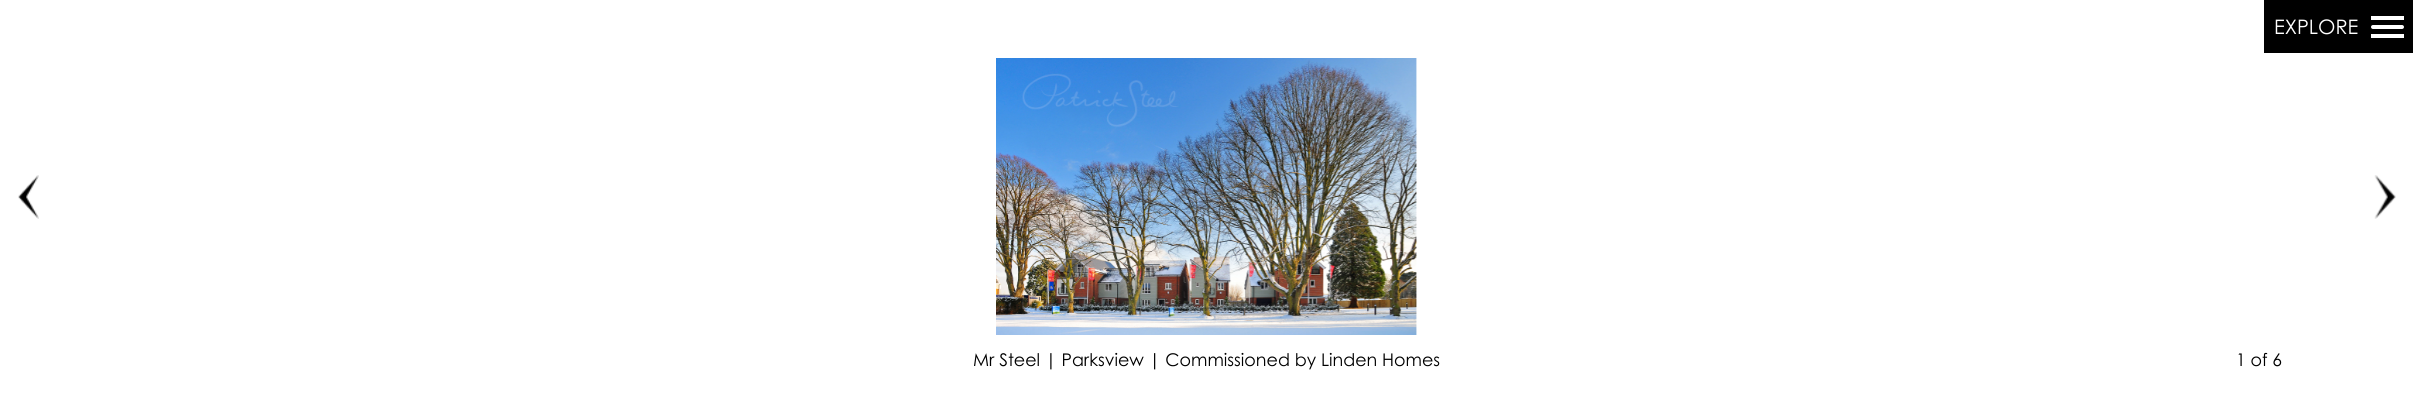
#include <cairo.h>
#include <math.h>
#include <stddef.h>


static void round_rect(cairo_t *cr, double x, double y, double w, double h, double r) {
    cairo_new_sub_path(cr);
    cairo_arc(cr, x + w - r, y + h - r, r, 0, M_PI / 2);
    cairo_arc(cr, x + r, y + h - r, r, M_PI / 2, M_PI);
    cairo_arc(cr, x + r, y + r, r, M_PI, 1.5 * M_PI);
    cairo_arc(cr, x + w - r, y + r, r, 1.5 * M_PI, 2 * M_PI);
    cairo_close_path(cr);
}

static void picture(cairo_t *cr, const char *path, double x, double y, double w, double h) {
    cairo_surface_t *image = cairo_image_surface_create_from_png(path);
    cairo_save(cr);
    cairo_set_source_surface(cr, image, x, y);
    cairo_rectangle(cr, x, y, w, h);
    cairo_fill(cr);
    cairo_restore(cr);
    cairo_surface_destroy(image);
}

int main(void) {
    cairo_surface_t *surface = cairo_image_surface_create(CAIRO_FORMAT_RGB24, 2413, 393);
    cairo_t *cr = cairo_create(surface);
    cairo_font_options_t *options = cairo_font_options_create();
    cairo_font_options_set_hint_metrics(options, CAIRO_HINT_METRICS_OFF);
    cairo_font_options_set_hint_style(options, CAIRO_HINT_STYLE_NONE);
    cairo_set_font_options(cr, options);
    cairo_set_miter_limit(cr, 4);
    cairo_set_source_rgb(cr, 1, 1, 1);
    cairo_paint(cr);
    cairo_set_source_rgb(cr, 0, 0, 0);
    cairo_rectangle(cr, 2264, 0, 149, 53);
    cairo_fill(cr);
    cairo_select_font_face(cr, "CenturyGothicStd", CAIRO_FONT_SLANT_NORMAL, CAIRO_FONT_WEIGHT_NORMAL);
    cairo_set_font_size(cr, 20);
    cairo_set_source_rgb(cr, 1, 1, 1);
    cairo_move_to(cr, 2274, 34);
    cairo_show_text(cr, "EXPLORE");
    round_rect(cr, 2371, 25, 33, 4, 2);
    cairo_fill(cr);
    cairo_rectangle(cr, 2371, 16, 33, 4);
    cairo_fill(cr);
    cairo_rectangle(cr, 2371, 34, 33, 4);
    cairo_fill(cr);
    picture(cr, "img1.png", 996, 58, 421, 277);
    picture(cr, "img2.png", 18, 175, 21, 44);
    picture(cr, "img3.png", 2374, 175, 22, 44);
    cairo_set_font_size(cr, 17.5);
    cairo_set_source_rgb(cr, 0, 0, 0);
    cairo_move_to(cr, 973, 366);
    cairo_show_text(cr, "Mr Steel | Parksview | Commissioned by Linden Homes");
    cairo_move_to(cr, 2236, 366);
    cairo_show_text(cr, "1 of 6");
    cairo_surface_write_to_png(surface, "page.png");
    cairo_font_options_destroy(options);
    cairo_destroy(cr);
    cairo_surface_destroy(surface);
    return 0;
}
